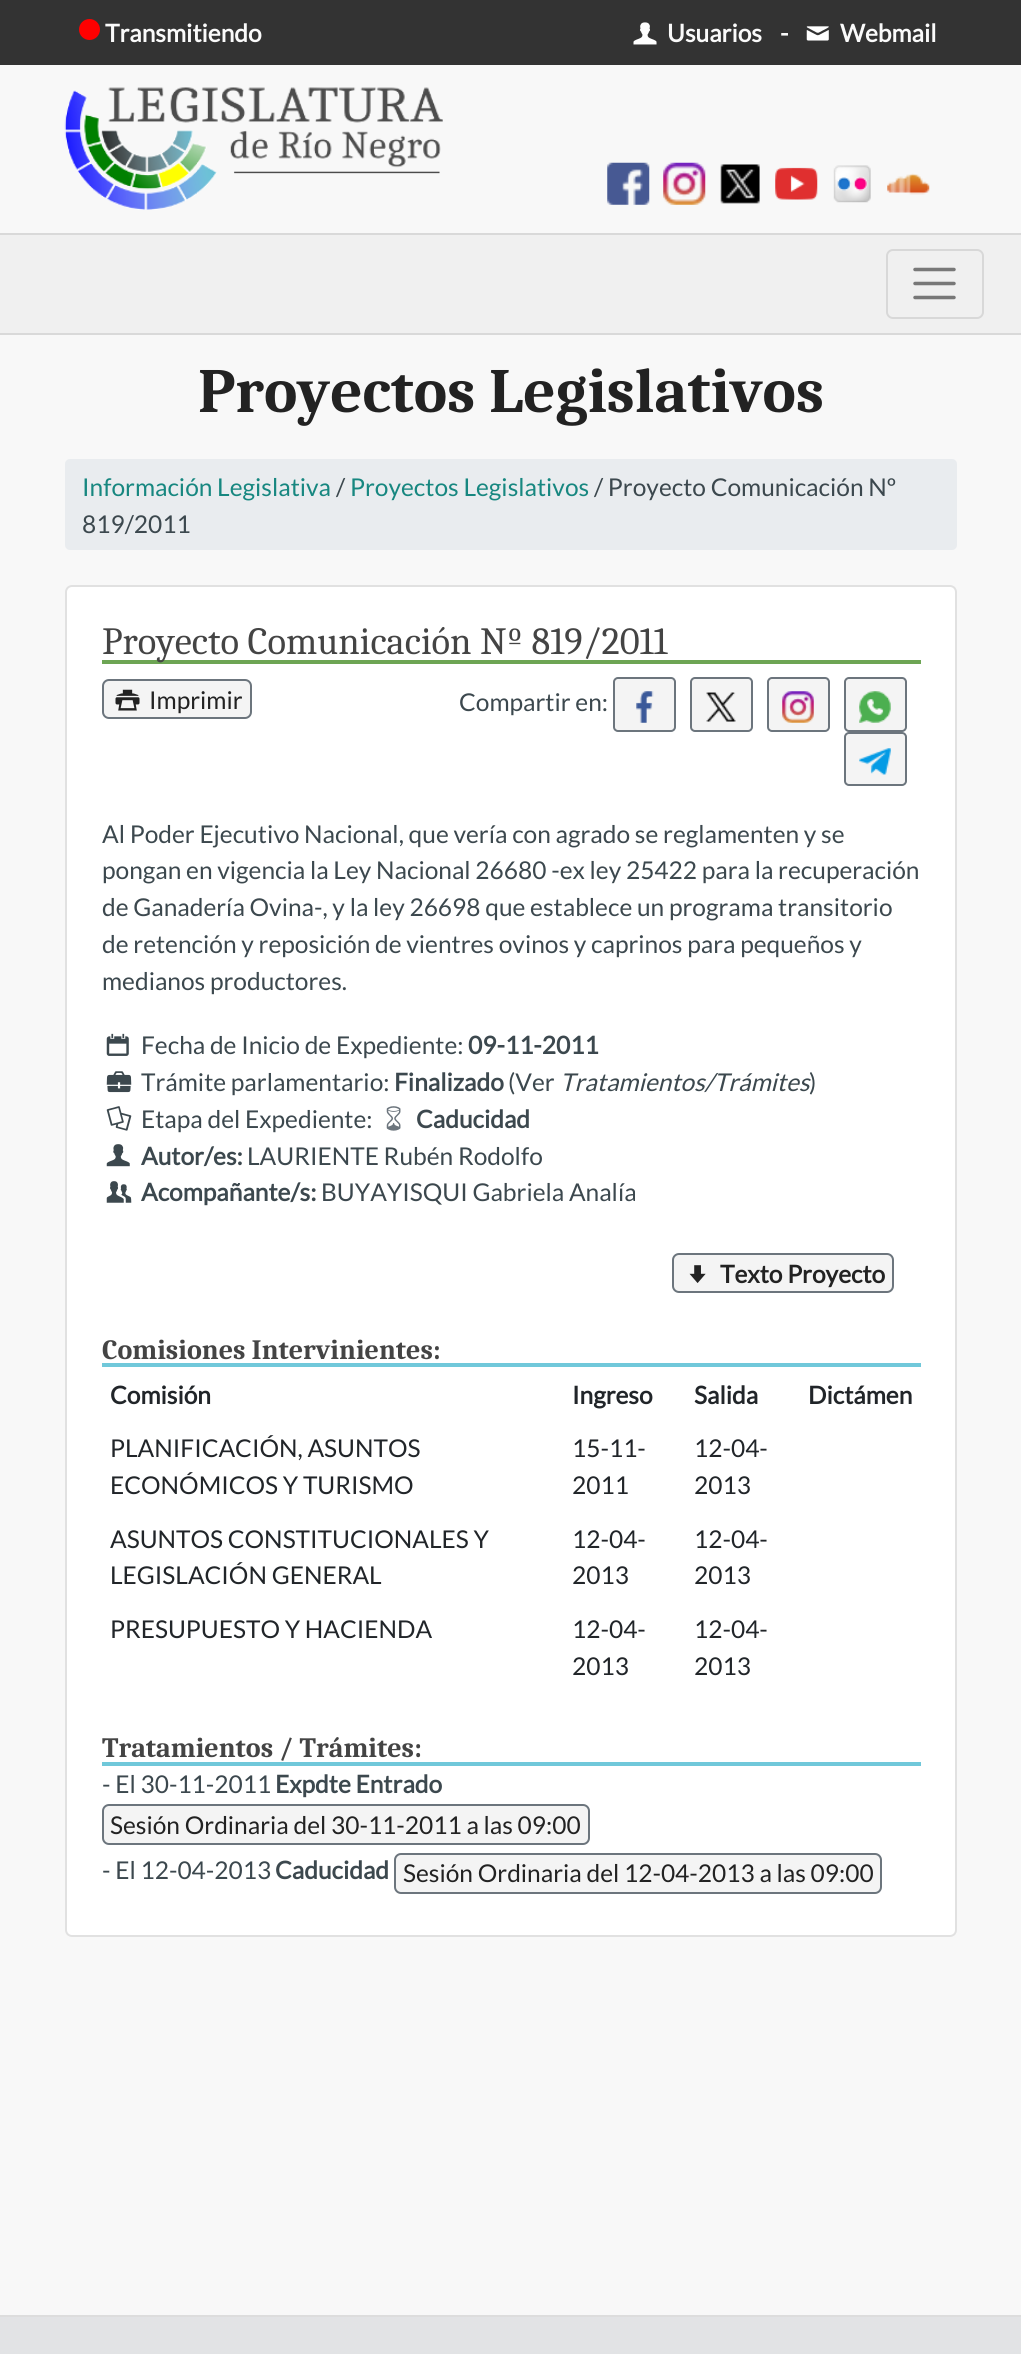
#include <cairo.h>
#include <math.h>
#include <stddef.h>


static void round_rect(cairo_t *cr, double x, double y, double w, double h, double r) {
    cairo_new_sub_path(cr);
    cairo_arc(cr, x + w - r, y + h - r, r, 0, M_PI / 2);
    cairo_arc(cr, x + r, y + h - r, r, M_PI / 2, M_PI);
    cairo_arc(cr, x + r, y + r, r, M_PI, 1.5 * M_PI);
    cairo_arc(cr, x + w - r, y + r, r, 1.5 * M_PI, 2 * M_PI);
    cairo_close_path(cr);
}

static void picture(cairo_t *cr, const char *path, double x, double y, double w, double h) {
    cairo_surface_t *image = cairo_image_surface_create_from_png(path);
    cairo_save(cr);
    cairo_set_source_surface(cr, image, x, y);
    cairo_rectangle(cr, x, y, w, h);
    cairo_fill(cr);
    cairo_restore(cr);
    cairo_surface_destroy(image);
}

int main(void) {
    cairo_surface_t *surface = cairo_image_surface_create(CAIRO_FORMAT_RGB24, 1021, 2354);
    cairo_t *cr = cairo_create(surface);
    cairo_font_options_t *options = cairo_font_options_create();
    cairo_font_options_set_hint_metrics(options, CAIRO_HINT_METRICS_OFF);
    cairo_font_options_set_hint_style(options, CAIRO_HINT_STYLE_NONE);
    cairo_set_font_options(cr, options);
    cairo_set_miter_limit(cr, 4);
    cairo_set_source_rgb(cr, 0.969, 0.969, 0.969);
    cairo_paint(cr);
    cairo_set_source_rgb(cr, 0.2, 0.2, 0.2);
    cairo_rectangle(cr, 0, 0, 1021, 65);
    cairo_fill(cr);
    cairo_set_source_rgb(cr, 1, 0, 0);
    cairo_arc(cr, 89.5, 29.5, 10.5, 0, 2 * M_PI);
    cairo_fill(cr);
    cairo_select_font_face(cr, "Lato", CAIRO_FONT_SLANT_NORMAL, CAIRO_FONT_WEIGHT_BOLD);
    cairo_set_font_size(cr, 24.5);
    cairo_set_source_rgb(cr, 0.98, 0.98, 0.98);
    cairo_move_to(cr, 105, 42);
    cairo_show_text(cr, "Transmitiendo");
    picture(cr, "img1.png", 633, 22, 24, 23);
    cairo_move_to(cr, 667, 42);
    cairo_show_text(cr, "Usuarios");
    cairo_move_to(cr, 780, 42);
    cairo_show_text(cr, "-");
    picture(cr, "img2.png", 806, 26, 23, 15);
    cairo_move_to(cr, 840, 42);
    cairo_show_text(cr, "Webmail");
    picture(cr, "img3.png", 64, 87, 379, 123);
    picture(cr, "img4.png", 607, 162, 43, 43);
    picture(cr, "img5.png", 663, 162, 43, 43);
    picture(cr, "img6.png", 720, 164, 40, 40);
    picture(cr, "img7.png", 775, 167, 43, 33);
    picture(cr, "img8.png", 833, 165, 38, 38);
    picture(cr, "img9.png", 887, 173, 43, 22);
    cairo_set_source_rgb(cr, 0.941, 0.941, 0.941);
    cairo_rectangle(cr, 0, 235, 1021, 98);
    cairo_fill(cr);
    cairo_set_source_rgb(cr, 0.851, 0.851, 0.851);
    cairo_rectangle(cr, 0, 233, 1021, 2);
    cairo_fill(cr);
    cairo_rectangle(cr, 0, 333, 1021, 2);
    cairo_fill(cr);
    round_rect(cr, 887, 250, 96, 68, 6);
    cairo_set_source_rgb(cr, 0.847, 0.847, 0.847);
    cairo_stroke(cr);
    cairo_new_path(cr);
    cairo_move_to(cr, 915, 269.5);
    cairo_line_to(cr, 954, 269.5);
    cairo_move_to(cr, 915, 283.5);
    cairo_line_to(cr, 954, 283.5);
    cairo_move_to(cr, 915, 297.5);
    cairo_line_to(cr, 954, 297.5);
    cairo_set_source_rgb(cr, 0.471, 0.471, 0.471);
    cairo_set_line_width(cr, 3.5);
    cairo_set_line_cap(cr, CAIRO_LINE_CAP_ROUND);
    cairo_stroke(cr);
    cairo_select_font_face(cr, "Caladea", CAIRO_FONT_SLANT_NORMAL, CAIRO_FONT_WEIGHT_BOLD);
    cairo_set_font_size(cr, 63);
    cairo_set_source_rgb(cr, 0.133, 0.133, 0.133);
    cairo_move_to(cr, 198, 412);
    cairo_show_text(cr, "Proyectos Legislativos");
    cairo_set_source_rgb(cr, 0.914, 0.925, 0.937);
    round_rect(cr, 65, 459, 892, 91, 5);
    cairo_fill(cr);
    cairo_select_font_face(cr, "Lato", CAIRO_FONT_SLANT_NORMAL, CAIRO_FONT_WEIGHT_NORMAL);
    cairo_set_font_size(cr, 24.5);
    cairo_set_source_rgb(cr, 0.09, 0.529, 0.502);
    cairo_move_to(cr, 82, 496);
    cairo_show_text(cr, "Información Legislativa");
    cairo_set_source_rgb(cr, 0.235, 0.282, 0.306);
    cairo_move_to(cr, 336, 496);
    cairo_show_text(cr, "/");
    cairo_set_source_rgb(cr, 0.09, 0.529, 0.502);
    cairo_move_to(cr, 350, 496);
    cairo_show_text(cr, "Proyectos Legislativos");
    cairo_set_source_rgb(cr, 0.235, 0.282, 0.306);
    cairo_move_to(cr, 594, 496);
    cairo_show_text(cr, "/ Proyecto Comunicación Nº");
    cairo_move_to(cr, 82, 533);
    cairo_show_text(cr, "819/2011");
    cairo_set_source_rgb(cr, 1, 1, 1);
    round_rect(cr, 65, 585, 892, 1352, 7);
    cairo_fill(cr);
    round_rect(cr, 66, 586, 890, 1350, 6);
    cairo_set_source_rgba(cr, 0, 0, 0, 0.12);
    cairo_set_line_width(cr, 2);
    cairo_set_line_cap(cr, CAIRO_LINE_CAP_BUTT);
    cairo_stroke(cr);
    cairo_set_source_rgb(cr, 0.427, 0.647, 0.329);
    cairo_rectangle(cr, 102, 660, 819, 4);
    cairo_fill(cr);
    cairo_select_font_face(cr, "Caladea", CAIRO_FONT_SLANT_NORMAL, CAIRO_FONT_WEIGHT_NORMAL);
    cairo_set_font_size(cr, 38.5);
    cairo_set_source_rgb(cr, 0.267, 0.267, 0.267);
    cairo_move_to(cr, 102, 654);
    cairo_show_text(cr, "Proyecto Comunicación Nº 819/2011");
    cairo_set_source_rgb(cr, 0.957, 0.957, 0.957);
    round_rect(cr, 103, 680, 148, 38, 6);
    cairo_fill_preserve(cr);
    cairo_set_source_rgb(cr, 0.424, 0.459, 0.49);
    cairo_stroke(cr);
    picture(cr, "img10.png", 115, 689, 25, 22);
    cairo_select_font_face(cr, "Lato", CAIRO_FONT_SLANT_NORMAL, CAIRO_FONT_WEIGHT_NORMAL);
    cairo_set_font_size(cr, 24.5);
    cairo_set_source_rgb(cr, 0.133, 0.133, 0.133);
    cairo_move_to(cr, 149, 709);
    cairo_show_text(cr, "Imprimir");
    cairo_set_source_rgb(cr, 0.235, 0.282, 0.306);
    cairo_move_to(cr, 459, 711);
    cairo_show_text(cr, "Compartir en:");
    cairo_set_source_rgb(cr, 0.957, 0.957, 0.957);
    round_rect(cr, 614, 678, 61, 53, 4);
    cairo_fill_preserve(cr);
    cairo_set_source_rgb(cr, 0.424, 0.459, 0.49);
    cairo_stroke(cr);
    picture(cr, "img11.png", 636, 691, 18, 32);
    cairo_set_source_rgb(cr, 0.957, 0.957, 0.957);
    round_rect(cr, 691, 678, 61, 53, 4);
    cairo_fill_preserve(cr);
    cairo_set_source_rgb(cr, 0.424, 0.459, 0.49);
    cairo_stroke(cr);
    picture(cr, "img12.png", 706, 692, 30, 30);
    cairo_set_source_rgb(cr, 0.957, 0.957, 0.957);
    round_rect(cr, 768, 678, 61, 53, 4);
    cairo_fill_preserve(cr);
    cairo_set_source_rgb(cr, 0.424, 0.459, 0.49);
    cairo_stroke(cr);
    picture(cr, "img13.png", 782, 691, 32, 32);
    cairo_set_source_rgb(cr, 0.957, 0.957, 0.957);
    round_rect(cr, 845, 678, 61, 53, 4);
    cairo_fill_preserve(cr);
    cairo_set_source_rgb(cr, 0.424, 0.459, 0.49);
    cairo_stroke(cr);
    picture(cr, "img14.png", 859, 691, 32, 32);
    cairo_set_source_rgb(cr, 0.957, 0.957, 0.957);
    round_rect(cr, 845, 733, 61, 52, 4);
    cairo_fill_preserve(cr);
    cairo_set_source_rgb(cr, 0.424, 0.459, 0.49);
    cairo_stroke(cr);
    picture(cr, "img15.png", 859, 748, 32, 27);
    cairo_set_source_rgb(cr, 0.235, 0.282, 0.306);
    cairo_move_to(cr, 102, 843);
    cairo_show_text(cr, "Al Poder Ejecutivo Nacional, que vería con agrado se reglamenten y se");
    cairo_move_to(cr, 102, 879);
    cairo_show_text(cr, "pongan en vigencia la Ley Nacional 26680 -ex ley 25422 para la recuperación");
    cairo_move_to(cr, 102, 916);
    cairo_show_text(cr, "de Ganadería Ovina-, y la ley 26698 que establece un programa transitorio");
    cairo_move_to(cr, 102, 953);
    cairo_show_text(cr, "de retención y reposición de vientres ovinos y caprinos para pequeños y");
    cairo_move_to(cr, 102, 990);
    cairo_show_text(cr, "medianos productores.");
    picture(cr, "img16.png", 106, 1033, 23, 23);
    cairo_move_to(cr, 141, 1054);
    cairo_show_text(cr, "Fecha de Inicio de Expediente:");
    cairo_select_font_face(cr, "Lato", CAIRO_FONT_SLANT_NORMAL, CAIRO_FONT_WEIGHT_BOLD);
    cairo_move_to(cr, 468, 1054);
    cairo_show_text(cr, "09-11-2011");
    picture(cr, "img17.png", 106, 1071, 26, 22);
    cairo_select_font_face(cr, "Lato", CAIRO_FONT_SLANT_NORMAL, CAIRO_FONT_WEIGHT_NORMAL);
    cairo_move_to(cr, 141, 1091);
    cairo_show_text(cr, "Trámite parlamentario:");
    cairo_select_font_face(cr, "Lato", CAIRO_FONT_SLANT_NORMAL, CAIRO_FONT_WEIGHT_BOLD);
    cairo_move_to(cr, 394, 1091);
    cairo_show_text(cr, "Finalizado");
    cairo_select_font_face(cr, "Lato", CAIRO_FONT_SLANT_NORMAL, CAIRO_FONT_WEIGHT_NORMAL);
    cairo_move_to(cr, 508, 1091);
    cairo_show_text(cr, "(Ver");
    cairo_select_font_face(cr, "Lato", CAIRO_FONT_SLANT_ITALIC, CAIRO_FONT_WEIGHT_NORMAL);
    cairo_move_to(cr, 560, 1091);
    cairo_show_text(cr, "Tratamientos/Trámites");
    cairo_select_font_face(cr, "Lato", CAIRO_FONT_SLANT_NORMAL, CAIRO_FONT_WEIGHT_NORMAL);
    cairo_move_to(cr, 809, 1091);
    cairo_show_text(cr, ")");
    picture(cr, "img18.png", 106, 1106, 26, 25);
    cairo_move_to(cr, 141, 1128);
    cairo_show_text(cr, "Etapa del Expediente:");
    picture(cr, "img19.png", 386, 1106, 15, 25);
    cairo_select_font_face(cr, "Lato", CAIRO_FONT_SLANT_NORMAL, CAIRO_FONT_WEIGHT_BOLD);
    cairo_move_to(cr, 416, 1128);
    cairo_show_text(cr, "Caducidad");
    picture(cr, "img20.png", 106, 1144, 24, 23);
    cairo_move_to(cr, 141, 1165);
    cairo_show_text(cr, "Autor/es:");
    cairo_select_font_face(cr, "Lato", CAIRO_FONT_SLANT_NORMAL, CAIRO_FONT_WEIGHT_NORMAL);
    cairo_move_to(cr, 247, 1165);
    cairo_show_text(cr, "LAURIENTE Rubén Rodolfo");
    picture(cr, "img21.png", 106, 1181, 26, 22);
    cairo_select_font_face(cr, "Lato", CAIRO_FONT_SLANT_NORMAL, CAIRO_FONT_WEIGHT_BOLD);
    cairo_move_to(cr, 141, 1201);
    cairo_show_text(cr, "Acompañante/s:");
    cairo_select_font_face(cr, "Lato", CAIRO_FONT_SLANT_NORMAL, CAIRO_FONT_WEIGHT_NORMAL);
    cairo_move_to(cr, 321, 1201);
    cairo_show_text(cr, "BUYAYISQUI Gabriela Analía");
    cairo_set_source_rgb(cr, 0.957, 0.957, 0.957);
    round_rect(cr, 673, 1254, 220, 38, 6);
    cairo_fill_preserve(cr);
    cairo_set_source_rgb(cr, 0.424, 0.459, 0.49);
    cairo_stroke(cr);
    picture(cr, "img22.png", 689, 1265, 17, 18);
    cairo_select_font_face(cr, "Lato", CAIRO_FONT_SLANT_NORMAL, CAIRO_FONT_WEIGHT_BOLD);
    cairo_set_source_rgb(cr, 0.133, 0.133, 0.133);
    cairo_move_to(cr, 720, 1283);
    cairo_show_text(cr, "Texto Proyecto");
    cairo_set_source_rgb(cr, 0.439, 0.784, 0.855);
    cairo_rectangle(cr, 102, 1363, 819, 4);
    cairo_fill(cr);
    cairo_select_font_face(cr, "Caladea", CAIRO_FONT_SLANT_NORMAL, CAIRO_FONT_WEIGHT_BOLD);
    cairo_set_font_size(cr, 28);
    cairo_set_source_rgb(cr, 0.267, 0.267, 0.267);
    cairo_move_to(cr, 102, 1359);
    cairo_show_text(cr, "Comisiones Intervinientes:");
    cairo_select_font_face(cr, "Lato", CAIRO_FONT_SLANT_NORMAL, CAIRO_FONT_WEIGHT_BOLD);
    cairo_set_font_size(cr, 24.5);
    cairo_set_source_rgb(cr, 0.129, 0.145, 0.161);
    cairo_move_to(cr, 110, 1404);
    cairo_show_text(cr, "Comisión");
    cairo_move_to(cr, 572, 1404);
    cairo_show_text(cr, "Ingreso");
    cairo_move_to(cr, 694, 1404);
    cairo_show_text(cr, "Salida");
    cairo_move_to(cr, 808, 1404);
    cairo_show_text(cr, "Dictámen");
    cairo_select_font_face(cr, "Lato", CAIRO_FONT_SLANT_NORMAL, CAIRO_FONT_WEIGHT_NORMAL);
    cairo_move_to(cr, 110, 1457);
    cairo_show_text(cr, "PLANIFICACIÓN, ASUNTOS");
    cairo_move_to(cr, 110, 1494);
    cairo_show_text(cr, "ECONÓMICOS Y TURISMO");
    cairo_move_to(cr, 572, 1457);
    cairo_show_text(cr, "15-11-");
    cairo_move_to(cr, 572, 1494);
    cairo_show_text(cr, "2011");
    cairo_move_to(cr, 694, 1457);
    cairo_show_text(cr, "12-04-");
    cairo_move_to(cr, 694, 1494);
    cairo_show_text(cr, "2013");
    cairo_move_to(cr, 110, 1548);
    cairo_show_text(cr, "ASUNTOS CONSTITUCIONALES Y");
    cairo_move_to(cr, 110, 1584);
    cairo_show_text(cr, "LEGISLACIÓN GENERAL");
    cairo_move_to(cr, 572, 1548);
    cairo_show_text(cr, "12-04-");
    cairo_move_to(cr, 572, 1584);
    cairo_show_text(cr, "2013");
    cairo_move_to(cr, 694, 1548);
    cairo_show_text(cr, "12-04-");
    cairo_move_to(cr, 694, 1584);
    cairo_show_text(cr, "2013");
    cairo_move_to(cr, 110, 1638);
    cairo_show_text(cr, "PRESUPUESTO Y HACIENDA");
    cairo_move_to(cr, 572, 1638);
    cairo_show_text(cr, "12-04-");
    cairo_move_to(cr, 572, 1675);
    cairo_show_text(cr, "2013");
    cairo_move_to(cr, 694, 1638);
    cairo_show_text(cr, "12-04-");
    cairo_move_to(cr, 694, 1675);
    cairo_show_text(cr, "2013");
    cairo_set_source_rgb(cr, 0.439, 0.784, 0.855);
    cairo_rectangle(cr, 102, 1762, 819, 4);
    cairo_fill(cr);
    cairo_select_font_face(cr, "Caladea", CAIRO_FONT_SLANT_NORMAL, CAIRO_FONT_WEIGHT_BOLD);
    cairo_set_font_size(cr, 28);
    cairo_set_source_rgb(cr, 0.267, 0.267, 0.267);
    cairo_move_to(cr, 102, 1757);
    cairo_show_text(cr, "Tratamientos / Trámites:");
    cairo_select_font_face(cr, "Lato", CAIRO_FONT_SLANT_NORMAL, CAIRO_FONT_WEIGHT_NORMAL);
    cairo_set_font_size(cr, 24.5);
    cairo_set_source_rgb(cr, 0.235, 0.282, 0.306);
    cairo_move_to(cr, 102, 1793);
    cairo_show_text(cr, "- El 30-11-2011");
    cairo_select_font_face(cr, "Lato", CAIRO_FONT_SLANT_NORMAL, CAIRO_FONT_WEIGHT_BOLD);
    cairo_move_to(cr, 275, 1793);
    cairo_show_text(cr, "Expdte Entrado");
    cairo_set_source_rgb(cr, 0.957, 0.957, 0.957);
    round_rect(cr, 103, 1805, 486, 39, 6);
    cairo_fill_preserve(cr);
    cairo_set_source_rgb(cr, 0.424, 0.459, 0.49);
    cairo_stroke(cr);
    cairo_select_font_face(cr, "Lato", CAIRO_FONT_SLANT_NORMAL, CAIRO_FONT_WEIGHT_NORMAL);
    cairo_set_source_rgb(cr, 0.133, 0.133, 0.133);
    cairo_move_to(cr, 110, 1834);
    cairo_show_text(cr, "Sesión Ordinaria del 30-11-2011 a las 09:00");
    cairo_set_source_rgb(cr, 0.235, 0.282, 0.306);
    cairo_move_to(cr, 102, 1879);
    cairo_show_text(cr, "- El 12-04-2013");
    cairo_select_font_face(cr, "Lato", CAIRO_FONT_SLANT_NORMAL, CAIRO_FONT_WEIGHT_BOLD);
    cairo_move_to(cr, 275, 1879);
    cairo_show_text(cr, "Caducidad");
    cairo_set_source_rgb(cr, 0.957, 0.957, 0.957);
    round_rect(cr, 395, 1854, 486, 39, 6);
    cairo_fill_preserve(cr);
    cairo_set_source_rgb(cr, 0.424, 0.459, 0.49);
    cairo_stroke(cr);
    cairo_select_font_face(cr, "Lato", CAIRO_FONT_SLANT_NORMAL, CAIRO_FONT_WEIGHT_NORMAL);
    cairo_set_source_rgb(cr, 0.133, 0.133, 0.133);
    cairo_move_to(cr, 403, 1882);
    cairo_show_text(cr, "Sesión Ordinaria del 12-04-2013 a las 09:00");
    cairo_set_source_rgb(cr, 0.886, 0.89, 0.898);
    cairo_rectangle(cr, 0, 2317, 1021, 37);
    cairo_fill(cr);
    cairo_set_source_rgb(cr, 0.867, 0.867, 0.867);
    cairo_rectangle(cr, 0, 2315, 1021, 2);
    cairo_fill(cr);
    cairo_surface_write_to_png(surface, "page.png");
    cairo_font_options_destroy(options);
    cairo_destroy(cr);
    cairo_surface_destroy(surface);
    return 0;
}
